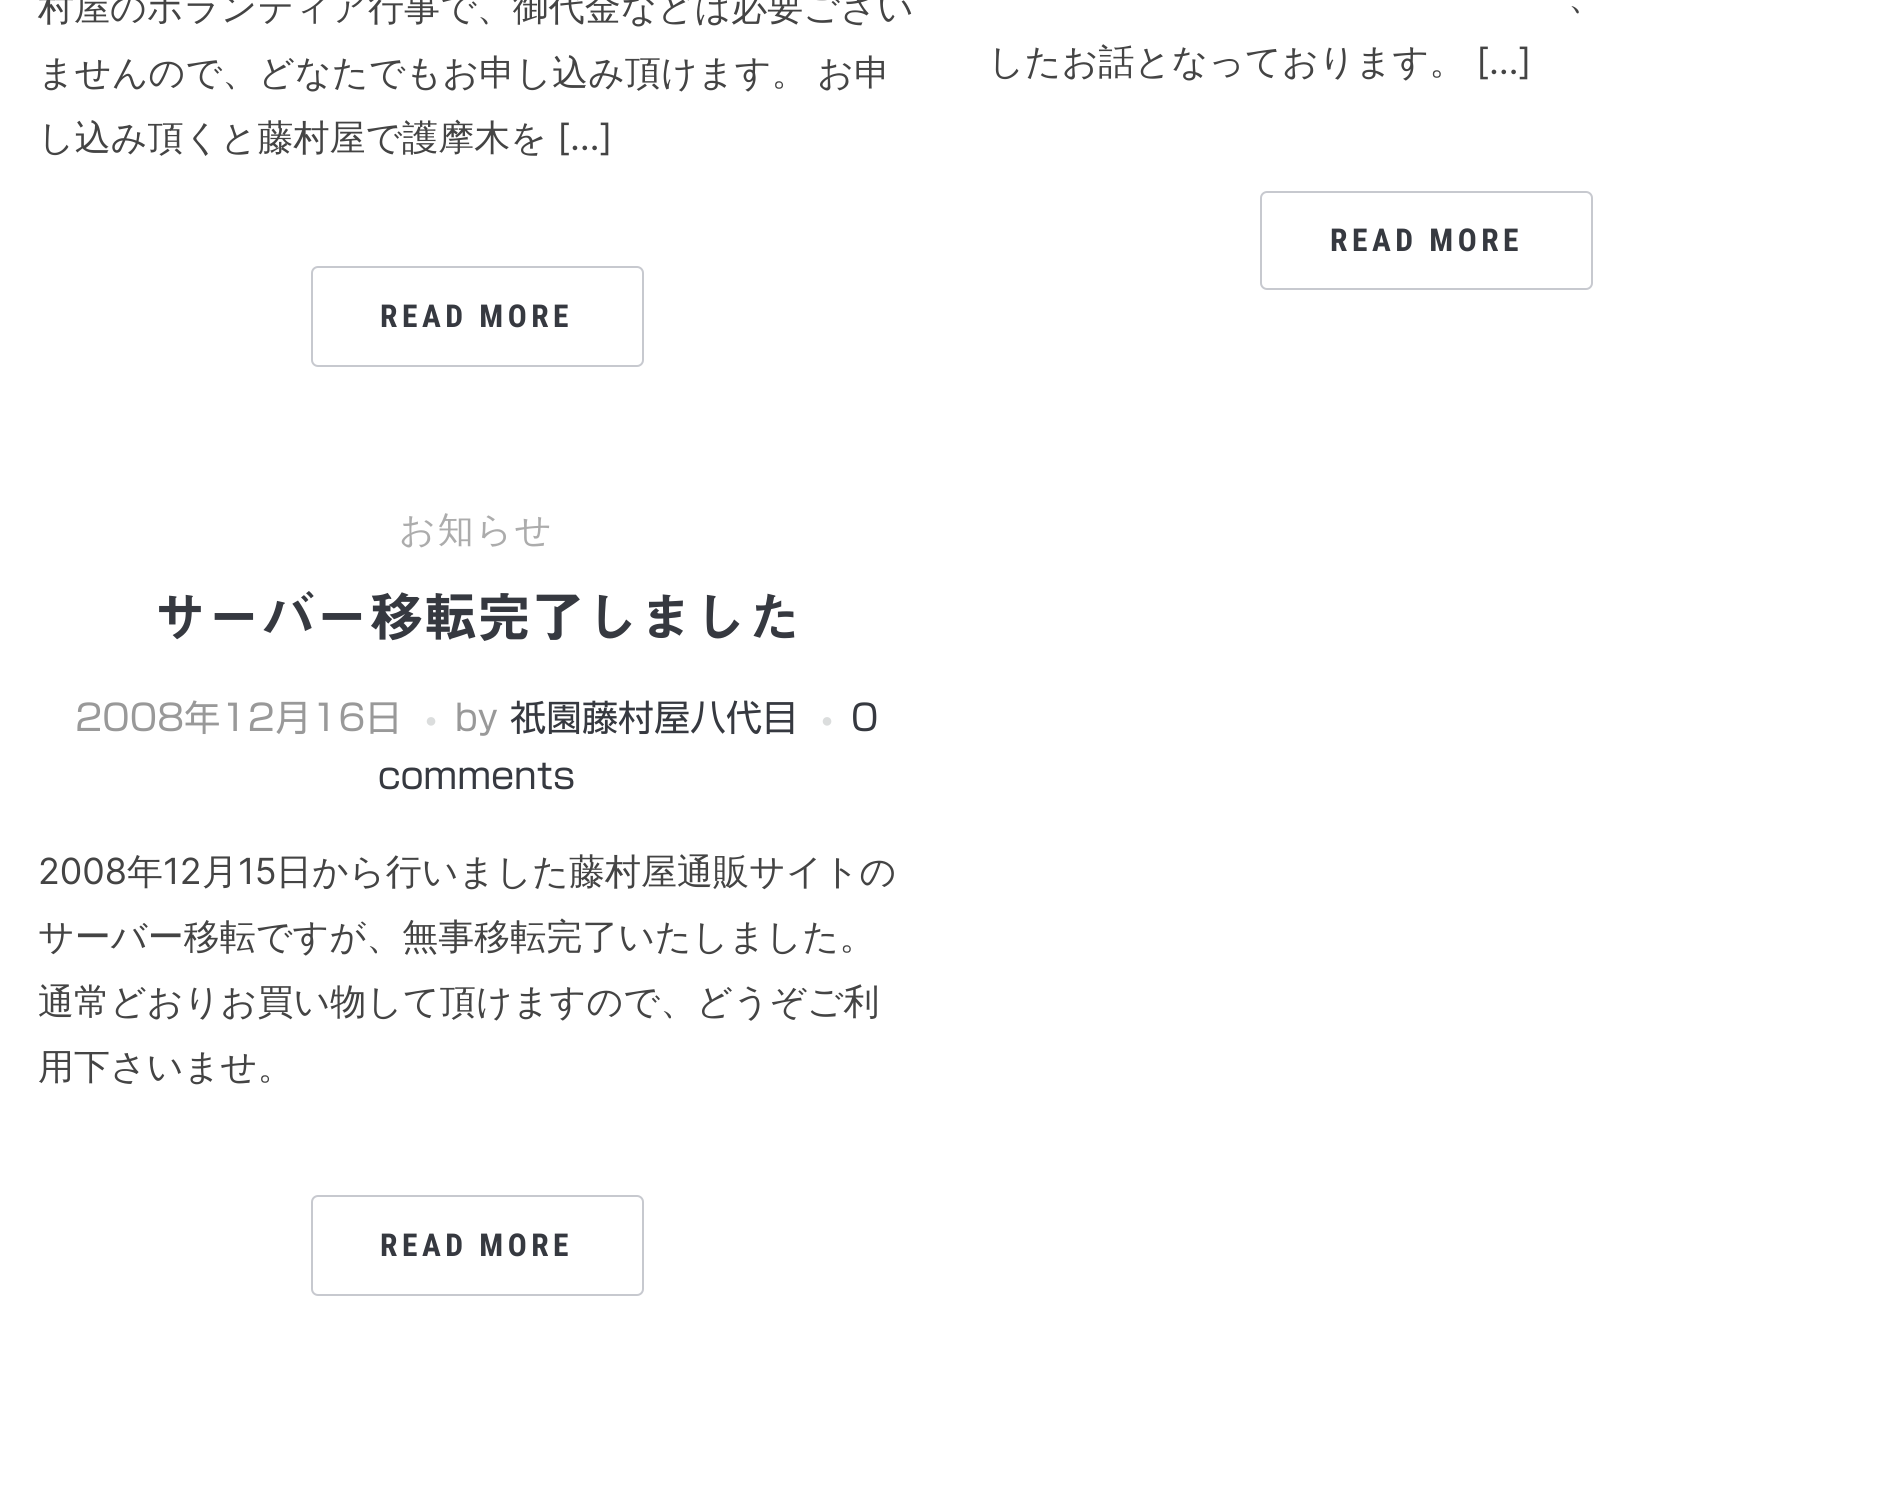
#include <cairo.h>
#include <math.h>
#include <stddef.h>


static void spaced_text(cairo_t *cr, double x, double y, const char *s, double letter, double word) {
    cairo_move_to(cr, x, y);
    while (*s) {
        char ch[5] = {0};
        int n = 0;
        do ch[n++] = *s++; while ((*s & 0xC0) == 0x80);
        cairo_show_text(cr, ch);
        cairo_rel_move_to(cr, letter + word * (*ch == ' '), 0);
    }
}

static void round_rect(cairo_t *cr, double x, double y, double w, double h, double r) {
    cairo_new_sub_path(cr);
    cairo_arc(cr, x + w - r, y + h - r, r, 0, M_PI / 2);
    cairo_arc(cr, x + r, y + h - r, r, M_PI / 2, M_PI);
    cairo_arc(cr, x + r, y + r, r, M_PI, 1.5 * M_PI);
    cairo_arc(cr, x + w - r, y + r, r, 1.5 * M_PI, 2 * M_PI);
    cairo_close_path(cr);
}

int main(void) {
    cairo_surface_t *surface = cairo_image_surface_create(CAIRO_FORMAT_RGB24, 1903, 1490);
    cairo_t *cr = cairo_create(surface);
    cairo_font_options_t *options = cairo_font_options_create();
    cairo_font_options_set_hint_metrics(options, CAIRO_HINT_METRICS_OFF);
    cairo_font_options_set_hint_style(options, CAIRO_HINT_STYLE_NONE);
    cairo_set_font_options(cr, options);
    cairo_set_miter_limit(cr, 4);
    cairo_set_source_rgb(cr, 1, 1, 1);
    cairo_paint(cr);
    cairo_select_font_face(cr, "WenQuanYi Zen Hei Medium", CAIRO_FONT_SLANT_NORMAL, CAIRO_FONT_WEIGHT_NORMAL);
    cairo_set_font_size(cr, 36);
    cairo_set_source_rgb(cr, 0.267, 0.267, 0.267);
    cairo_move_to(cr, 38, 20);
    cairo_show_text(cr, "村屋のボランティア行事で、御代金などは必要ござい");
    spaced_text(cr, 38, 85, "ませんので、どなたでもお申し込み頂けます。 お申", 0, -1);
    cairo_move_to(cr, 38, 150);
    cairo_show_text(cr, "し込み頂くと藤村屋で護摩木を");
    cairo_select_font_face(cr, "Inter", CAIRO_FONT_SLANT_NORMAL, CAIRO_FONT_WEIGHT_NORMAL);
    cairo_move_to(cr, 557, 150);
    cairo_show_text(cr, "[…]");
    round_rect(cr, 312, 267, 331, 99, 6);
    cairo_set_source_rgb(cr, 0.78, 0.788, 0.812);
    cairo_stroke(cr);
    cairo_select_font_face(cr, "Roboto Condensed", CAIRO_FONT_SLANT_NORMAL, CAIRO_FONT_WEIGHT_BOLD);
    cairo_set_font_size(cr, 31.5);
    cairo_set_source_rgb(cr, 0.212, 0.224, 0.251);
    spaced_text(cr, 380, 327, "READ MORE", 4.5, 0);
    cairo_select_font_face(cr, "WenQuanYi Zen Hei Medium", CAIRO_FONT_SLANT_NORMAL, CAIRO_FONT_WEIGHT_NORMAL);
    cairo_set_font_size(cr, 36);
    cairo_set_source_rgb(cr, 0.267, 0.267, 0.267);
    cairo_move_to(cr, 1568, 9);
    cairo_show_text(cr, "、");
    cairo_move_to(cr, 988, 74);
    cairo_show_text(cr, "したお話となっております。");
    cairo_select_font_face(cr, "Inter", CAIRO_FONT_SLANT_NORMAL, CAIRO_FONT_WEIGHT_NORMAL);
    cairo_move_to(cr, 1476, 74);
    cairo_show_text(cr, "[…]");
    round_rect(cr, 1261, 192, 331, 97, 6);
    cairo_set_source_rgb(cr, 0.78, 0.788, 0.812);
    cairo_stroke(cr);
    cairo_select_font_face(cr, "Roboto Condensed", CAIRO_FONT_SLANT_NORMAL, CAIRO_FONT_WEIGHT_BOLD);
    cairo_set_font_size(cr, 31.5);
    cairo_set_source_rgb(cr, 0.212, 0.224, 0.251);
    spaced_text(cr, 1330, 251, "READ MORE", 4.5, 0);
    cairo_select_font_face(cr, "WenQuanYi Zen Hei Medium", CAIRO_FONT_SLANT_NORMAL, CAIRO_FONT_WEIGHT_NORMAL);
    cairo_set_font_size(cr, 36);
    cairo_set_source_rgb(cr, 0.675, 0.675, 0.675);
    spaced_text(cr, 399, 542, "お知らせ", 2, 0);
    cairo_select_font_face(cr, "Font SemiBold", CAIRO_FONT_SLANT_NORMAL, CAIRO_FONT_WEIGHT_NORMAL);
    cairo_set_font_size(cr, 54);
    cairo_set_source_rgb(cr, 0.212, 0.224, 0.251);
    cairo_move_to(cr, 153, 637);
    cairo_show_text(cr, "サーバー移転完了しました");
    cairo_select_font_face(cr, "Font", CAIRO_FONT_SLANT_NORMAL, CAIRO_FONT_WEIGHT_NORMAL);
    cairo_set_font_size(cr, 36);
    cairo_set_source_rgb(cr, 0.6, 0.6, 0.6);
    cairo_move_to(cr, 75, 731);
    cairo_show_text(cr, "2008年12月16日");
    cairo_select_font_face(cr, "Liberation Serif", CAIRO_FONT_SLANT_NORMAL, CAIRO_FONT_WEIGHT_NORMAL);
    cairo_set_font_size(cr, 20);
    cairo_set_source_rgb(cr, 0.859, 0.867, 0.867);
    cairo_move_to(cr, 425, 727);
    cairo_show_text(cr, "●");
    cairo_select_font_face(cr, "Font", CAIRO_FONT_SLANT_NORMAL, CAIRO_FONT_WEIGHT_NORMAL);
    cairo_set_font_size(cr, 36);
    cairo_set_source_rgb(cr, 0.6, 0.6, 0.6);
    cairo_move_to(cr, 455, 731);
    cairo_show_text(cr, "by");
    cairo_set_source_rgb(cr, 0.212, 0.224, 0.251);
    cairo_move_to(cr, 510, 731);
    cairo_show_text(cr, "祇園藤村屋八代目");
    cairo_select_font_face(cr, "Liberation Serif", CAIRO_FONT_SLANT_NORMAL, CAIRO_FONT_WEIGHT_NORMAL);
    cairo_set_font_size(cr, 20);
    cairo_set_source_rgb(cr, 0.859, 0.867, 0.867);
    cairo_move_to(cr, 821, 727);
    cairo_show_text(cr, "●");
    cairo_select_font_face(cr, "Font", CAIRO_FONT_SLANT_NORMAL, CAIRO_FONT_WEIGHT_NORMAL);
    cairo_set_font_size(cr, 36);
    cairo_set_source_rgb(cr, 0.212, 0.224, 0.251);
    cairo_move_to(cr, 851, 731);
    cairo_show_text(cr, "0");
    cairo_move_to(cr, 378, 789);
    cairo_show_text(cr, "comments");
    cairo_select_font_face(cr, "Inter", CAIRO_FONT_SLANT_NORMAL, CAIRO_FONT_WEIGHT_NORMAL);
    cairo_set_source_rgb(cr, 0.267, 0.267, 0.267);
    cairo_move_to(cr, 38, 884);
    cairo_show_text(cr, "2008");
    cairo_select_font_face(cr, "WenQuanYi Zen Hei Medium", CAIRO_FONT_SLANT_NORMAL, CAIRO_FONT_WEIGHT_NORMAL);
    cairo_move_to(cr, 127, 884);
    cairo_show_text(cr, "年");
    cairo_select_font_face(cr, "Inter", CAIRO_FONT_SLANT_NORMAL, CAIRO_FONT_WEIGHT_NORMAL);
    cairo_move_to(cr, 163, 884);
    cairo_show_text(cr, "12");
    cairo_select_font_face(cr, "WenQuanYi Zen Hei Medium", CAIRO_FONT_SLANT_NORMAL, CAIRO_FONT_WEIGHT_NORMAL);
    cairo_move_to(cr, 202, 884);
    cairo_show_text(cr, "月");
    cairo_select_font_face(cr, "Inter", CAIRO_FONT_SLANT_NORMAL, CAIRO_FONT_WEIGHT_NORMAL);
    cairo_move_to(cr, 238, 884);
    cairo_show_text(cr, "15");
    cairo_select_font_face(cr, "WenQuanYi Zen Hei Medium", CAIRO_FONT_SLANT_NORMAL, CAIRO_FONT_WEIGHT_NORMAL);
    cairo_move_to(cr, 276, 884);
    cairo_show_text(cr, "日から行いました藤村屋通販サイトの");
    cairo_move_to(cr, 38, 949);
    cairo_show_text(cr, "サーバー移転ですが、無事移転完了いたしました。");
    cairo_move_to(cr, 38, 1014);
    cairo_show_text(cr, "通常どおりお買い物して頂けますので、どうぞご利");
    cairo_move_to(cr, 38, 1079);
    cairo_show_text(cr, "用下さいませ。");
    round_rect(cr, 312, 1196, 331, 99, 6);
    cairo_set_source_rgb(cr, 0.78, 0.788, 0.812);
    cairo_stroke(cr);
    cairo_select_font_face(cr, "Roboto Condensed", CAIRO_FONT_SLANT_NORMAL, CAIRO_FONT_WEIGHT_BOLD);
    cairo_set_font_size(cr, 31.5);
    cairo_set_source_rgb(cr, 0.212, 0.224, 0.251);
    spaced_text(cr, 380, 1256, "READ MORE", 4.5, 0);
    cairo_surface_write_to_png(surface, "page.png");
    cairo_font_options_destroy(options);
    cairo_destroy(cr);
    cairo_surface_destroy(surface);
    return 0;
}
